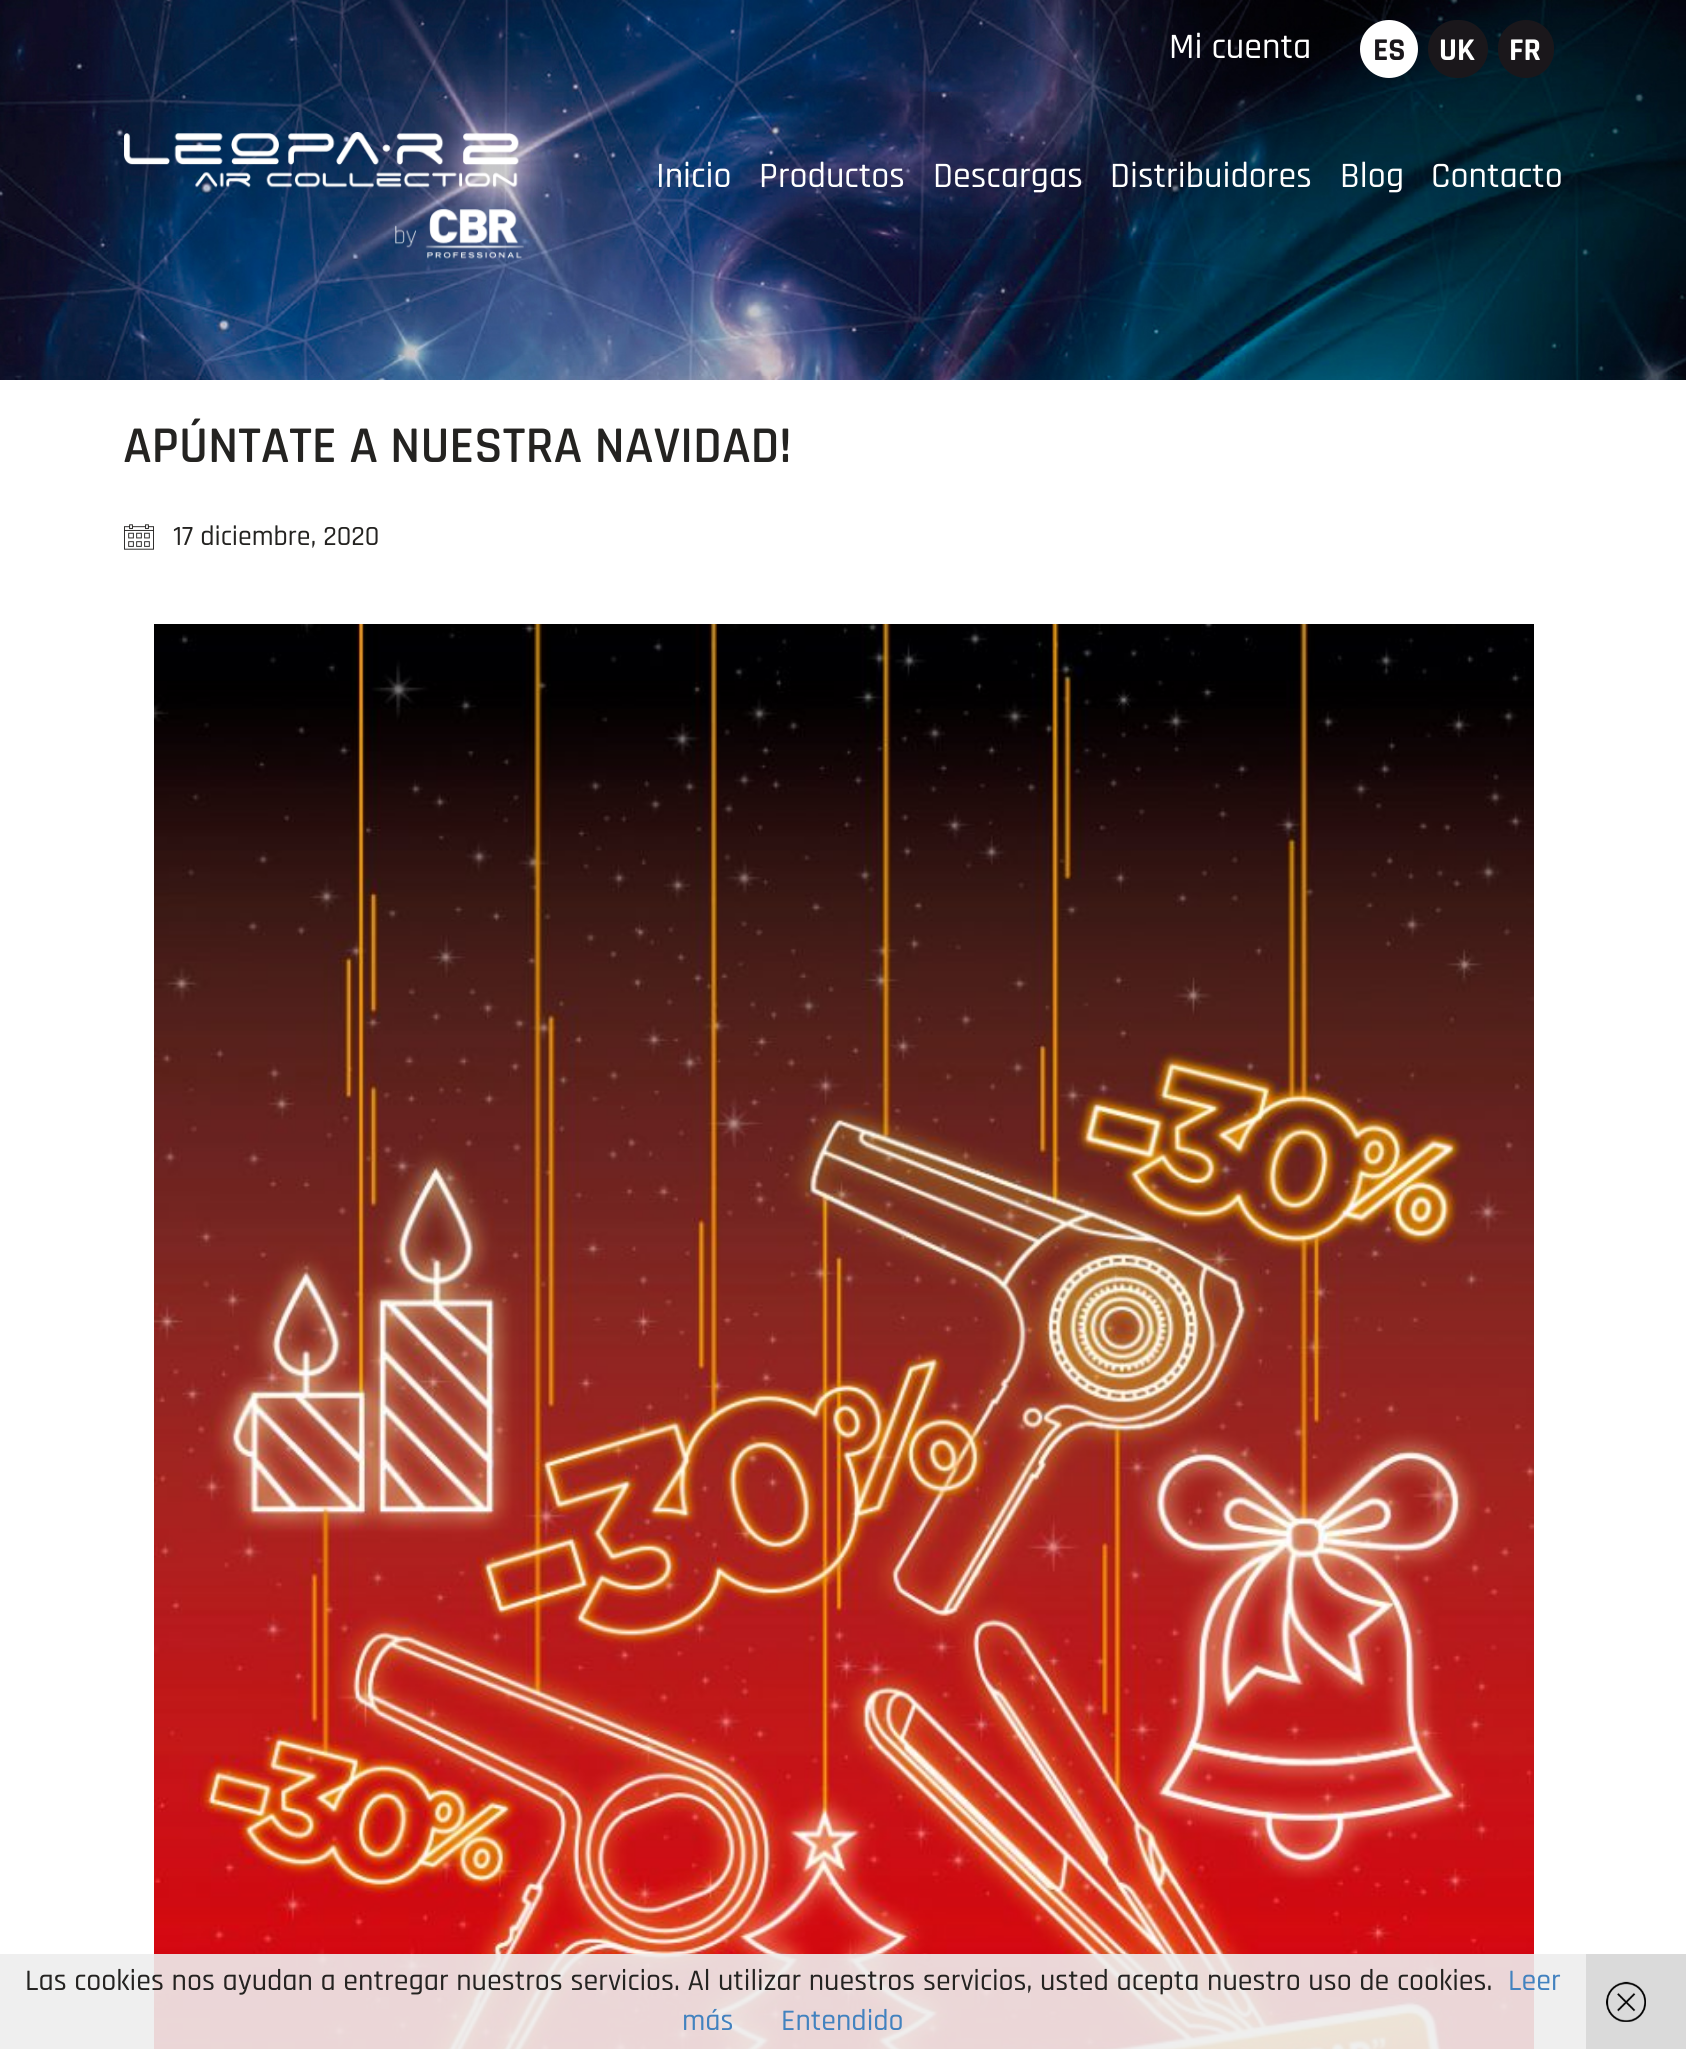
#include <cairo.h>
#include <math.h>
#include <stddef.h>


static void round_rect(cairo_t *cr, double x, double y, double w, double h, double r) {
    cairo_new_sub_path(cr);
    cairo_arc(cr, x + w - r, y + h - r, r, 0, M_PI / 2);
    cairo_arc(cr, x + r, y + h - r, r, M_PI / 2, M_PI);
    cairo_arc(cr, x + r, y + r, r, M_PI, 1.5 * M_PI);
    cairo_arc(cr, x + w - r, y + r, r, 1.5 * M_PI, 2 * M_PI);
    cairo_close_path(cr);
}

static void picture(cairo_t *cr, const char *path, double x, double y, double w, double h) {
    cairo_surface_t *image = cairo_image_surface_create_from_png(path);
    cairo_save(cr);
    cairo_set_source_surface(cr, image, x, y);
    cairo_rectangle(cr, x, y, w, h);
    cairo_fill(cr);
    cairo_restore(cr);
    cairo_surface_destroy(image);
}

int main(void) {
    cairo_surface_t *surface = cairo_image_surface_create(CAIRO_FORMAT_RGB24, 1686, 2049);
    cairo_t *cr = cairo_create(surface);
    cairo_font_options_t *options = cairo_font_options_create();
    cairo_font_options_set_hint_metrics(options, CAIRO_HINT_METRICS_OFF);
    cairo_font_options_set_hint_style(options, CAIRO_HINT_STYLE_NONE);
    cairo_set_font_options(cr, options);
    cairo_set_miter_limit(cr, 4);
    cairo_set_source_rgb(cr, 1, 1, 1);
    cairo_paint(cr);
    picture(cr, "img1.png", 0, 0, 1686, 380);
    cairo_select_font_face(cr, "Rajdhani Medium", CAIRO_FONT_SLANT_NORMAL, CAIRO_FONT_WEIGHT_NORMAL);
    cairo_set_font_size(cr, 36);
    cairo_set_source_rgb(cr, 1, 1, 1);
    cairo_move_to(cr, 1169, 58);
    cairo_show_text(cr, "Mi cuenta");
    cairo_new_path(cr);
    cairo_arc(cr, 1389, 49, 29, 0, 2 * M_PI);
    cairo_fill(cr);
    cairo_select_font_face(cr, "Rajdhani", CAIRO_FONT_SLANT_NORMAL, CAIRO_FONT_WEIGHT_BOLD);
    cairo_set_font_size(cr, 32);
    cairo_set_source_rgb(cr, 0.102, 0.09, 0.106);
    cairo_move_to(cr, 1373, 60);
    cairo_show_text(cr, "ES");
    round_rect(cr, 1428, 20, 60, 58, 29);
    cairo_fill(cr);
    cairo_set_source_rgb(cr, 1, 1, 1);
    cairo_move_to(cr, 1439, 60);
    cairo_show_text(cr, "UK");
    cairo_set_source_rgb(cr, 0.102, 0.09, 0.106);
    round_rect(cr, 1498, 20, 56, 58, 28);
    cairo_fill(cr);
    cairo_set_source_rgb(cr, 1, 1, 1);
    cairo_move_to(cr, 1509, 60);
    cairo_show_text(cr, "FR");
    picture(cr, "img2.png", 124, 132, 400, 127);
    cairo_select_font_face(cr, "Rajdhani Medium", CAIRO_FONT_SLANT_NORMAL, CAIRO_FONT_WEIGHT_NORMAL);
    cairo_set_font_size(cr, 36);
    cairo_move_to(cr, 656, 187);
    cairo_show_text(cr, "Inicio");
    cairo_move_to(cr, 759, 187);
    cairo_show_text(cr, "Productos");
    cairo_move_to(cr, 933, 187);
    cairo_show_text(cr, "Descargas");
    cairo_move_to(cr, 1110, 187);
    cairo_show_text(cr, "Distribuidores");
    cairo_move_to(cr, 1340, 187);
    cairo_show_text(cr, "Blog");
    cairo_move_to(cr, 1431, 187);
    cairo_show_text(cr, "Contacto");
    cairo_select_font_face(cr, "Rajdhani SemiBold", CAIRO_FONT_SLANT_NORMAL, CAIRO_FONT_WEIGHT_NORMAL);
    cairo_set_font_size(cr, 52);
    cairo_set_source_rgb(cr, 0.141, 0.137, 0.129);
    cairo_move_to(cr, 123, 462);
    cairo_show_text(cr, "APÚNTATE A NUESTRA NAVIDAD!");
    picture(cr, "img3.png", 124, 524, 30, 26);
    cairo_select_font_face(cr, "Rajdhani Medium", CAIRO_FONT_SLANT_NORMAL, CAIRO_FONT_WEIGHT_NORMAL);
    cairo_set_font_size(cr, 28);
    cairo_move_to(cr, 173, 545);
    cairo_show_text(cr, "17 diciembre, 2020");
    picture(cr, "img4.png", 154, 624, 1380, 1425);
    cairo_set_source_rgba(cr, 0.933, 0.933, 0.933, 0.9);
    cairo_rectangle(cr, 0, 1954, 1586, 95);
    cairo_fill(cr);
    cairo_set_font_size(cr, 30);
    cairo_set_source_rgb(cr, 0.141, 0.137, 0.129);
    cairo_move_to(cr, 25, 1990);
    cairo_show_text(cr, "Las cookies nos ayudan a entregar nuestros servicios. Al utilizar nuestros servicios, usted acepta nuestro uso de cookies.");
    cairo_set_source_rgb(cr, 0.259, 0.51, 0.749);
    cairo_move_to(cr, 1508, 1990);
    cairo_show_text(cr, "Leer");
    cairo_move_to(cr, 682, 2030);
    cairo_show_text(cr, "más");
    cairo_move_to(cr, 781, 2030);
    cairo_show_text(cr, "Entendido");
    cairo_set_source_rgb(cr, 0.855, 0.855, 0.855);
    cairo_rectangle(cr, 1586, 1954, 100, 95);
    cairo_fill(cr);
    picture(cr, "img5.png", 1606, 1981, 40, 41);
    cairo_surface_write_to_png(surface, "page.png");
    cairo_font_options_destroy(options);
    cairo_destroy(cr);
    cairo_surface_destroy(surface);
    return 0;
}
